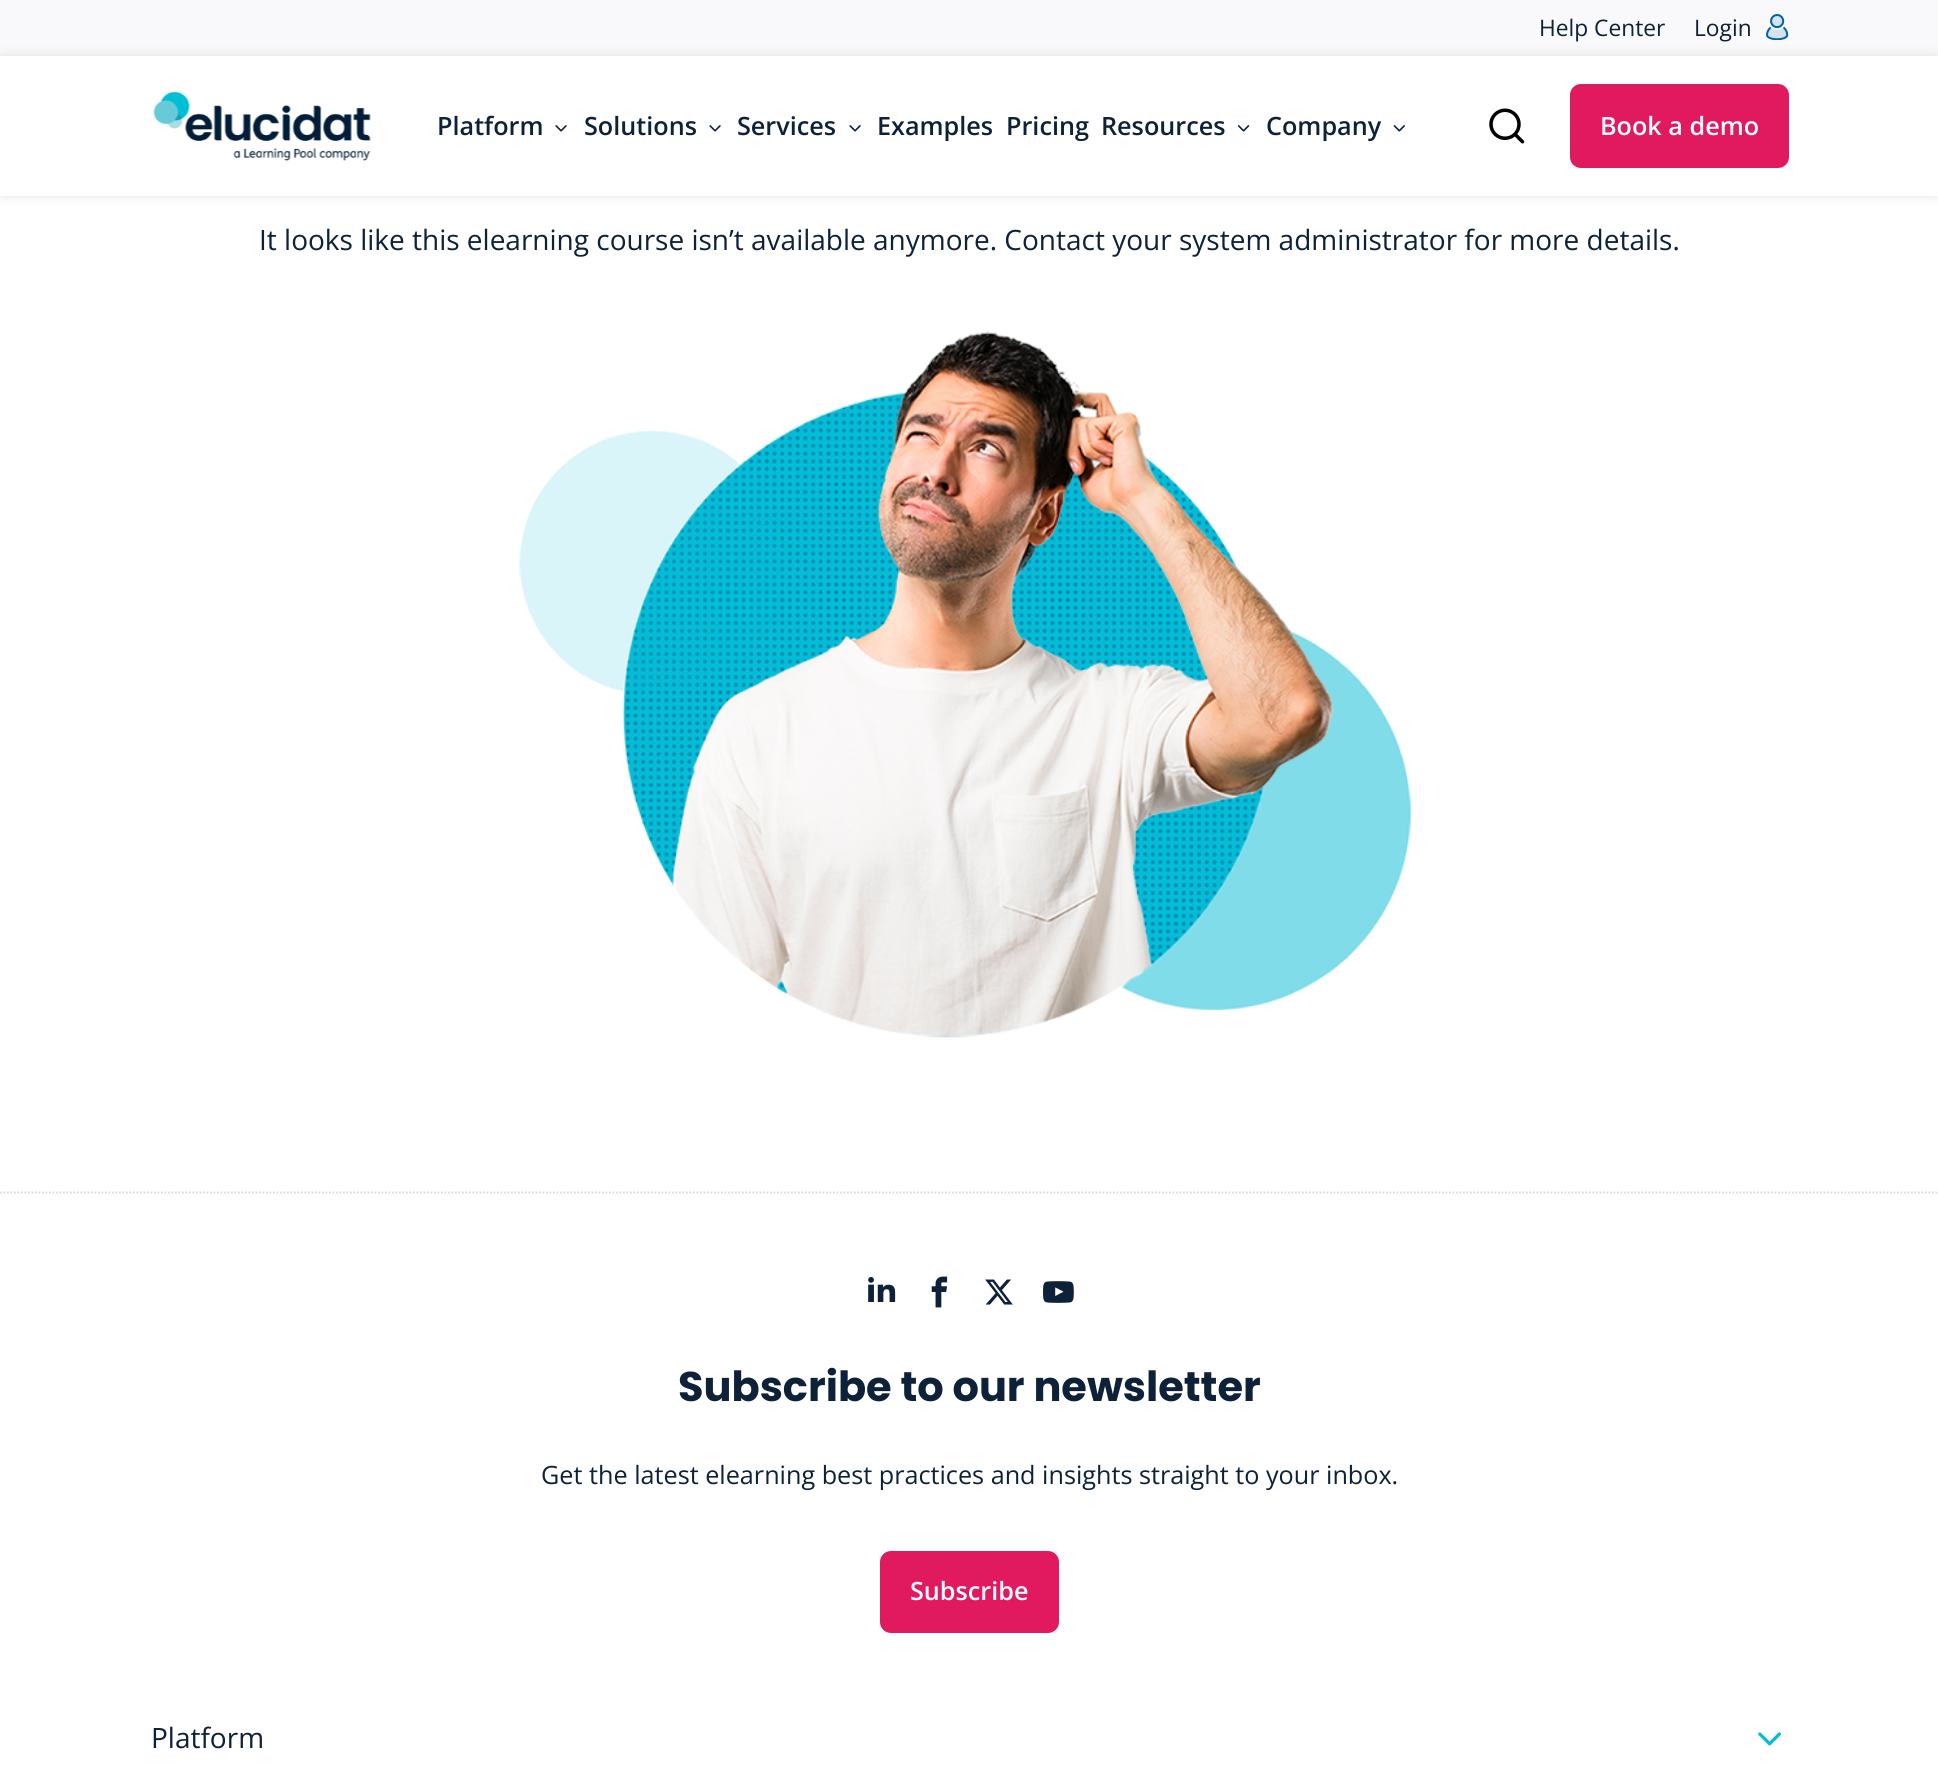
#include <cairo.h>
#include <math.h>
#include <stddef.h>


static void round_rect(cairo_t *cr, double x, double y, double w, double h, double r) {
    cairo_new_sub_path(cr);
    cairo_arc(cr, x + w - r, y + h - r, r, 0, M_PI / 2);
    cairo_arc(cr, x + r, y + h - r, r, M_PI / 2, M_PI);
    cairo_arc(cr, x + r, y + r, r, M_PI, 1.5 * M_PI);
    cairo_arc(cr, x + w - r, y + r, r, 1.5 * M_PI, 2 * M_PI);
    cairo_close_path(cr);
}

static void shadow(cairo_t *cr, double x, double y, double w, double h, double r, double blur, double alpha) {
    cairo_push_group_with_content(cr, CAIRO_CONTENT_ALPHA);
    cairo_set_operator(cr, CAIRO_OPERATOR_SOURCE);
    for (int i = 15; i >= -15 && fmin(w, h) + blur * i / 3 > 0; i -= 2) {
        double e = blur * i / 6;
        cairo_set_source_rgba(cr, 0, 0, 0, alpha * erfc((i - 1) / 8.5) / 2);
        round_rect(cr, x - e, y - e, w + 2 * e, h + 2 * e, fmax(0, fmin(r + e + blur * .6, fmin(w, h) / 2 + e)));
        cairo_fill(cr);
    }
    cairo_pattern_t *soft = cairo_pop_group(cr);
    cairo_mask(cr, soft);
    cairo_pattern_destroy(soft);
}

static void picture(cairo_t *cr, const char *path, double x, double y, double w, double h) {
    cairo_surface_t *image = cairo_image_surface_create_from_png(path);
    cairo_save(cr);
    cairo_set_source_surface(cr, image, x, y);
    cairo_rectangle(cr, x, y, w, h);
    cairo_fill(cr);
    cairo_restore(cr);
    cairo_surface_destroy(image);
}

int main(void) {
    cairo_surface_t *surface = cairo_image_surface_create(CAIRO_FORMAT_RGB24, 1938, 1775);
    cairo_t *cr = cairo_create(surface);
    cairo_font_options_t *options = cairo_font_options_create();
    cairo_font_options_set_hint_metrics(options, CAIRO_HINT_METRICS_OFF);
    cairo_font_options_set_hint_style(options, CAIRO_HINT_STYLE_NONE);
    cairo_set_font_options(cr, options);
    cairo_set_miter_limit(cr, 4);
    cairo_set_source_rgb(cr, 1, 1, 1);
    cairo_paint(cr);
    cairo_set_source_rgb(cr, 0.976, 0.976, 0.984);
    cairo_rectangle(cr, 0, 0, 1938, 56);
    cairo_fill(cr);
    cairo_select_font_face(cr, "Open Sans", CAIRO_FONT_SLANT_NORMAL, CAIRO_FONT_WEIGHT_NORMAL);
    cairo_set_font_size(cr, 22.75);
    cairo_set_source_rgb(cr, 0.051, 0.129, 0.224);
    cairo_move_to(cr, 1539, 36);
    cairo_show_text(cr, "Help Center");
    cairo_move_to(cr, 1694, 36);
    cairo_show_text(cr, "Login");
    picture(cr, "img1.png", 1766, 14, 23, 26);
    cairo_save(cr);
    cairo_set_fill_rule(cr, CAIRO_FILL_RULE_EVEN_ODD);
    cairo_new_path(cr);
    cairo_move_to(cr, 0, 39);
    cairo_line_to(cr, 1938, 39);
    cairo_line_to(cr, 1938, 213);
    cairo_line_to(cr, 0, 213);
    cairo_close_path(cr);
    cairo_move_to(cr, 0, 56);
    cairo_line_to(cr, 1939, 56);
    cairo_line_to(cr, 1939, 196);
    cairo_line_to(cr, 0, 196);
    cairo_close_path(cr);
    cairo_clip(cr);
    cairo_set_source_rgb(cr, 0.847, 0.847, 0.847);
    shadow(cr, 2, 58, 1935, 136, 0, 6, 1);
    cairo_restore(cr);
    picture(cr, "img2.png", 153, 91, 218, 70);
    cairo_select_font_face(cr, "Open Sans SemiBold", CAIRO_FONT_SLANT_NORMAL, CAIRO_FONT_WEIGHT_NORMAL);
    cairo_set_font_size(cr, 25.2);
    cairo_move_to(cr, 437, 135);
    cairo_show_text(cr, "Platform");
    picture(cr, "img3.png", 555, 125, 12, 7);
    cairo_move_to(cr, 584, 135);
    cairo_show_text(cr, "Solutions");
    picture(cr, "img3.png", 709, 125, 12, 7);
    cairo_move_to(cr, 737, 135);
    cairo_show_text(cr, "Services");
    picture(cr, "img3.png", 849, 125, 12, 7);
    cairo_move_to(cr, 877, 135);
    cairo_show_text(cr, "Examples");
    cairo_move_to(cr, 1006, 135);
    cairo_show_text(cr, "Pricing");
    cairo_move_to(cr, 1101, 135);
    cairo_show_text(cr, "Resources");
    picture(cr, "img4.png", 1237, 125, 13, 7);
    cairo_move_to(cr, 1266, 135);
    cairo_show_text(cr, "Company");
    picture(cr, "img5.png", 1393, 125, 12, 7);
    picture(cr, "img6.png", 1489, 108, 36, 36);
    cairo_set_source_rgb(cr, 0.882, 0.098, 0.373);
    round_rect(cr, 1571, 85, 217, 82, 10);
    cairo_fill_preserve(cr);
    cairo_stroke(cr);
    cairo_set_source_rgb(cr, 1, 1, 1);
    cairo_move_to(cr, 1600, 135);
    cairo_show_text(cr, "Book a demo");
    cairo_select_font_face(cr, "Open Sans", CAIRO_FONT_SLANT_NORMAL, CAIRO_FONT_WEIGHT_NORMAL);
    cairo_set_font_size(cr, 28);
    cairo_set_source_rgb(cr, 0.051, 0.129, 0.224);
    cairo_move_to(cr, 259, 250);
    cairo_show_text(cr, "It looks like this elearning course isn’t available anymore. Contact your system administrator for more details.");
    picture(cr, "img7.png", 519, 331, 893, 707);
    cairo_new_path(cr);
    cairo_move_to(cr, 0, 1192.5);
    cairo_line_to(cr, 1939, 1192.5);
    cairo_set_source_rgb(cr, 0.847, 0.847, 0.847);
    cairo_set_line_width(cr, 1.8);
    cairo_set_dash(cr, (double[]){1.75, 1.75}, 2, 0);
    cairo_stroke(cr);
    picture(cr, "img8.png", 868, 1277, 28, 25);
    picture(cr, "img9.png", 931, 1276, 17, 32);
    picture(cr, "img10.png", 985, 1279, 28, 26);
    picture(cr, "img11.png", 1043, 1281, 31, 22);
    cairo_select_font_face(cr, "Poppins", CAIRO_FONT_SLANT_NORMAL, CAIRO_FONT_WEIGHT_BOLD);
    cairo_set_font_size(cr, 41.5);
    cairo_set_source_rgb(cr, 0.051, 0.129, 0.224);
    cairo_move_to(cr, 678, 1401);
    cairo_show_text(cr, "Subscribe to our newsletter");
    cairo_select_font_face(cr, "Open Sans", CAIRO_FONT_SLANT_NORMAL, CAIRO_FONT_WEIGHT_NORMAL);
    cairo_set_font_size(cr, 25.2);
    cairo_move_to(cr, 541, 1484);
    cairo_show_text(cr, "Get the latest elearning best practices and insights straight to your inbox.");
    cairo_set_source_rgb(cr, 0.882, 0.098, 0.373);
    round_rect(cr, 881, 1552, 177, 80, 10);
    cairo_fill_preserve(cr);
    cairo_set_line_width(cr, 2);
    cairo_set_dash(cr, NULL, 0, 0);
    cairo_stroke(cr);
    cairo_select_font_face(cr, "Open Sans SemiBold", CAIRO_FONT_SLANT_NORMAL, CAIRO_FONT_WEIGHT_NORMAL);
    cairo_set_source_rgb(cr, 1, 1, 1);
    cairo_move_to(cr, 910, 1600);
    cairo_show_text(cr, "Subscribe");
    cairo_select_font_face(cr, "Open Sans", CAIRO_FONT_SLANT_NORMAL, CAIRO_FONT_WEIGHT_NORMAL);
    cairo_set_font_size(cr, 28);
    cairo_set_source_rgb(cr, 0.051, 0.129, 0.224);
    cairo_move_to(cr, 151, 1748);
    cairo_show_text(cr, "Platform");
    picture(cr, "img12.png", 1758, 1732, 23, 14);
    cairo_surface_write_to_png(surface, "page.png");
    cairo_font_options_destroy(options);
    cairo_destroy(cr);
    cairo_surface_destroy(surface);
    return 0;
}
